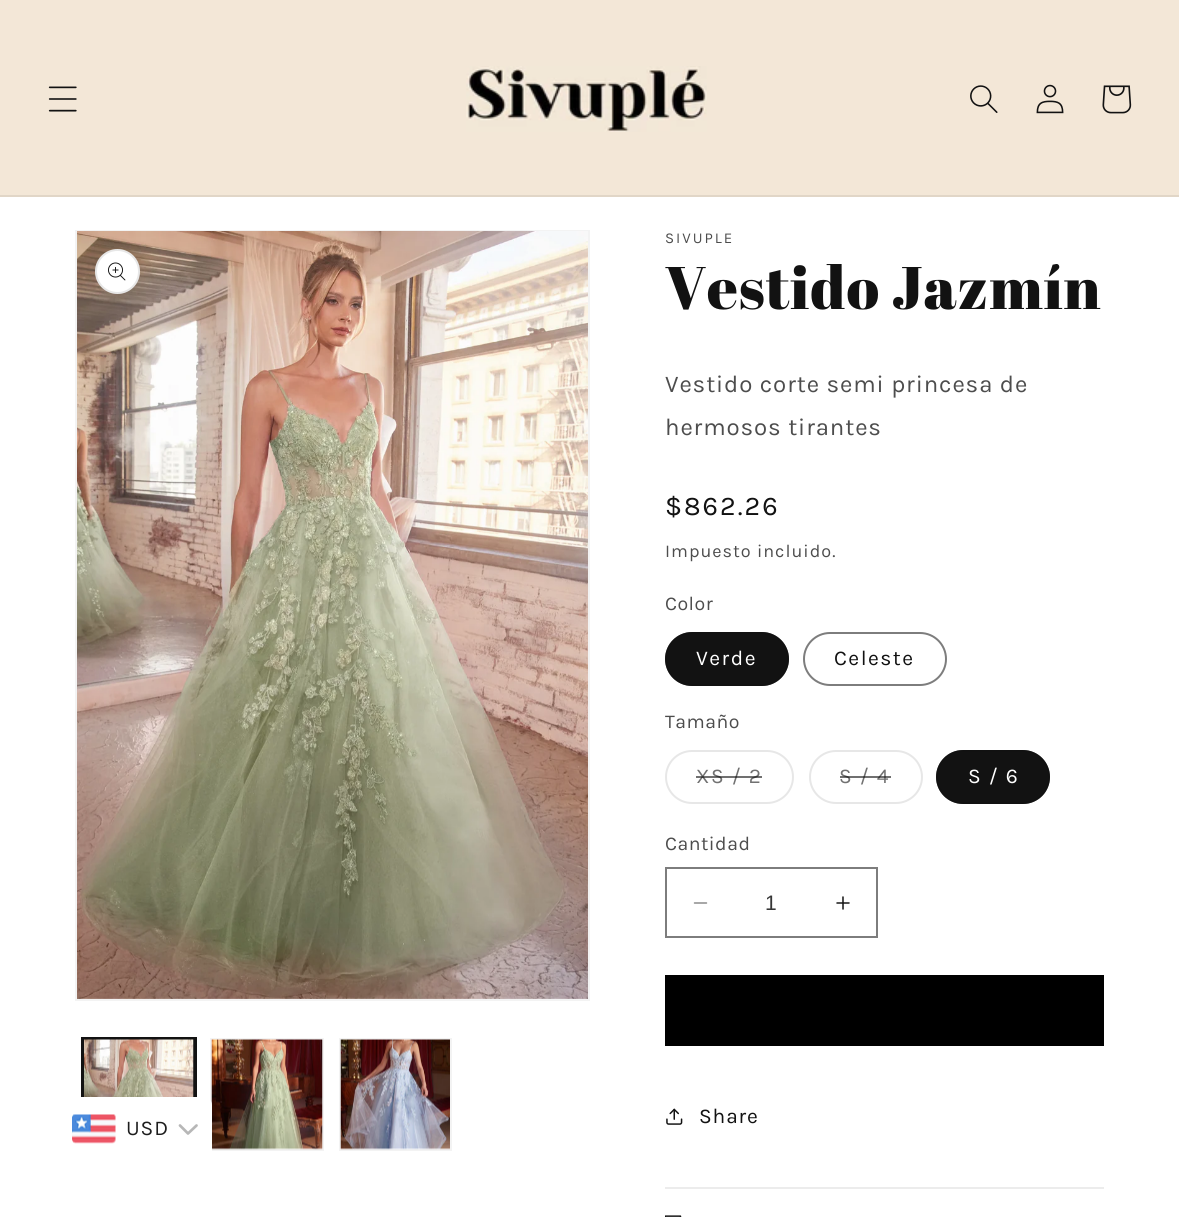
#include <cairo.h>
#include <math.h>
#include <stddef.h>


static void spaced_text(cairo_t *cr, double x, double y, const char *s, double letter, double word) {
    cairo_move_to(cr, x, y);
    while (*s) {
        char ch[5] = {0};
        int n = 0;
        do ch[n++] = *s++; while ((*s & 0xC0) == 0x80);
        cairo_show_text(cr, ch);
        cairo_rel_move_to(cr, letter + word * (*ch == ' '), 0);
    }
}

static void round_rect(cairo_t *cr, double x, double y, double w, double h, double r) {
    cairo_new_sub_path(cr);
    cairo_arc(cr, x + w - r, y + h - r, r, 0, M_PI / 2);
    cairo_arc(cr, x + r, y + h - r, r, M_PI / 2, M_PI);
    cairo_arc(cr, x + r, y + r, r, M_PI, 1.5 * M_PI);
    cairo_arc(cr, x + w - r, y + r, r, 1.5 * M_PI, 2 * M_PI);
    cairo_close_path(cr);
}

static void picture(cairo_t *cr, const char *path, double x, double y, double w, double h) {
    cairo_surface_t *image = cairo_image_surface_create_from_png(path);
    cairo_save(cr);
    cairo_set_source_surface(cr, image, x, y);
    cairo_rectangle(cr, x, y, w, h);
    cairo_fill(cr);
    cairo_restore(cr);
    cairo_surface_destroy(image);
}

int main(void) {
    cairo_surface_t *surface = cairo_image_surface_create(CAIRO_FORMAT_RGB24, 1179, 1217);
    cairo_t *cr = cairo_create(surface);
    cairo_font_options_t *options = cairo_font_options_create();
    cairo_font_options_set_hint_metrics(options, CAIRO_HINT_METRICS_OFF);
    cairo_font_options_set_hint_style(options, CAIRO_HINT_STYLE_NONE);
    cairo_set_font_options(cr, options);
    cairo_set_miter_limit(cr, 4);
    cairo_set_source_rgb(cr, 1, 1, 1);
    cairo_paint(cr);
    cairo_set_source_rgb(cr, 0.953, 0.906, 0.843);
    cairo_rectangle(cr, 0, 0, 1179, 195);
    cairo_fill(cr);
    cairo_set_source_rgb(cr, 0.882, 0.839, 0.78);
    cairo_rectangle(cr, 0, 195, 1179, 2);
    cairo_fill(cr);
    picture(cr, "img1.png", 48, 86, 29, 26);
    picture(cr, "img2.png", 466, 66, 241, 66);
    picture(cr, "img3.png", 970, 85, 28, 28);
    picture(cr, "img4.png", 1036, 84, 28, 30);
    picture(cr, "img5.png", 1102, 85, 30, 29);
    cairo_rectangle(cr, 76, 231, 513, 769);
    cairo_set_source_rgb(cr, 0.953, 0.953, 0.953);
    cairo_stroke(cr);
    picture(cr, "img6.png", 77, 231, 511, 768);
    cairo_set_source_rgb(cr, 1, 1, 1);
    cairo_arc(cr, 117.5, 271.5, 22.5, 0, 2 * M_PI);
    cairo_fill(cr);
    cairo_arc(cr, 117.5, 271.5, 21.5, 0, 2 * M_PI);
    cairo_set_source_rgba(cr, 0.071, 0.071, 0.071, 0.1);
    cairo_stroke(cr);
    picture(cr, "img7.png", 108, 262, 18, 19);
    cairo_rectangle(cr, 82, 1038, 114, 113);
    cairo_set_source_rgb(cr, 0.071, 0.071, 0.071);
    cairo_stroke(cr);
    cairo_rectangle(cr, 84, 1039, 110, 111);
    cairo_stroke(cr);
    picture(cr, "img8.png", 84, 1039, 110, 58);
    cairo_rectangle(cr, 211, 1039, 112, 111);
    cairo_set_source_rgb(cr, 0.953, 0.953, 0.953);
    cairo_stroke(cr);
    picture(cr, "img9.png", 211, 1039, 112, 111);
    cairo_rectangle(cr, 340, 1039, 111, 111);
    cairo_stroke(cr);
    picture(cr, "img10.png", 340, 1039, 110, 111);
    cairo_select_font_face(cr, "Karla", CAIRO_FONT_SLANT_NORMAL, CAIRO_FONT_WEIGHT_NORMAL);
    cairo_set_font_size(cr, 15);
    cairo_set_source_rgb(cr, 0.302, 0.302, 0.302);
    spaced_text(cr, 665, 243, "SIVUPLE", 2, 0);
    cairo_select_font_face(cr, "Abril Fatface", CAIRO_FONT_SLANT_NORMAL, CAIRO_FONT_WEIGHT_NORMAL);
    cairo_set_font_size(cr, 60);
    cairo_set_source_rgb(cr, 0.071, 0.071, 0.071);
    spaced_text(cr, 665, 309, "Vestido Jazmín", 0.9, 0);
    cairo_select_font_face(cr, "Karla", CAIRO_FONT_SLANT_NORMAL, CAIRO_FONT_WEIGHT_NORMAL);
    cairo_set_font_size(cr, 24);
    cairo_set_source_rgb(cr, 0.302, 0.302, 0.302);
    spaced_text(cr, 665, 392, "Vestido corte semi princesa de", 0.9, 0);
    spaced_text(cr, 665, 435, "hermosos tirantes", 0.9, 0);
    cairo_set_font_size(cr, 27);
    cairo_set_source_rgb(cr, 0.071, 0.071, 0.071);
    spaced_text(cr, 665, 515, "$862.26", 2, 0);
    cairo_set_font_size(cr, 18);
    cairo_set_source_rgb(cr, 0.302, 0.302, 0.302);
    spaced_text(cr, 665, 557, "Impuesto incluido.", 1, 0);
    cairo_set_font_size(cr, 19.5);
    spaced_text(cr, 665, 610, "Color", 0.5, 0);
    cairo_set_source_rgb(cr, 0.071, 0.071, 0.071);
    round_rect(cr, 665, 632, 124, 54, 27);
    cairo_fill(cr);
    round_rect(cr, 666, 633, 122, 52, 26);
    cairo_set_source_rgba(cr, 0.071, 0.071, 0.071, 0.55);
    cairo_stroke(cr);
    cairo_set_font_size(cr, 21);
    cairo_set_source_rgb(cr, 1, 1, 1);
    spaced_text(cr, 696, 665, "Verde", 1.5, 0);
    round_rect(cr, 804, 633, 142, 52, 26);
    cairo_set_source_rgb(cr, 0.49, 0.49, 0.49);
    cairo_stroke(cr);
    cairo_set_source_rgb(cr, 0.071, 0.071, 0.071);
    spaced_text(cr, 834, 665, "Celeste", 1.5, 0);
    cairo_set_font_size(cr, 19.5);
    cairo_set_source_rgb(cr, 0.302, 0.302, 0.302);
    spaced_text(cr, 665, 728, "Tamaño", 0.5, 0);
    round_rect(cr, 666, 751, 127, 52, 26);
    cairo_set_source_rgb(cr, 0.906, 0.906, 0.906);
    cairo_stroke(cr);
    cairo_set_font_size(cr, 21);
    cairo_set_source_rgb(cr, 0.443, 0.443, 0.443);
    spaced_text(cr, 696, 783, "XS / 2", 1.5, 0);
    cairo_set_source_rgba(cr, 0.071, 0.071, 0.071, 0.6);
    cairo_rectangle(cr, 696, 776, 66, 2);
    cairo_fill(cr);
    round_rect(cr, 810, 751, 112, 52, 26);
    cairo_set_source_rgb(cr, 0.906, 0.906, 0.906);
    cairo_stroke(cr);
    cairo_set_source_rgb(cr, 0.443, 0.443, 0.443);
    spaced_text(cr, 839, 783, "S / 4", 1.5, 0);
    cairo_set_source_rgba(cr, 0.071, 0.071, 0.071, 0.6);
    cairo_rectangle(cr, 840, 776, 51, 2);
    cairo_fill(cr);
    cairo_set_source_rgb(cr, 0.071, 0.071, 0.071);
    round_rect(cr, 936, 750, 114, 54, 27);
    cairo_fill(cr);
    round_rect(cr, 937, 751, 112, 52, 26);
    cairo_set_source_rgba(cr, 0.071, 0.071, 0.071, 0.55);
    cairo_stroke(cr);
    cairo_set_source_rgb(cr, 1, 1, 1);
    spaced_text(cr, 968, 783, "S / 6", 1.5, 0);
    cairo_set_font_size(cr, 19.5);
    cairo_set_source_rgb(cr, 0.302, 0.302, 0.302);
    spaced_text(cr, 665, 850, "Cantidad", 0.5, 0);
    picture(cr, "img11.png", 693, 902, 15, 2);
    picture(cr, "img12.png", 836, 896, 14, 14);
    cairo_rectangle(cr, 666, 868, 211, 69);
    cairo_set_source_rgb(cr, 0.49, 0.49, 0.49);
    cairo_stroke(cr);
    cairo_select_font_face(cr, "Liberation Sans", CAIRO_FONT_SLANT_NORMAL, CAIRO_FONT_WEIGHT_NORMAL);
    cairo_set_font_size(cr, 21);
    cairo_set_source_rgb(cr, 0.212, 0.212, 0.212);
    cairo_move_to(cr, 765, 910);
    cairo_show_text(cr, "1");
    cairo_set_source_rgb(cr, 0, 0, 0);
    cairo_rectangle(cr, 665, 975, 439, 71);
    cairo_fill(cr);
    picture(cr, "img13.png", 666, 1108, 17, 17);
    cairo_select_font_face(cr, "Karla", CAIRO_FONT_SLANT_NORMAL, CAIRO_FONT_WEIGHT_NORMAL);
    cairo_set_source_rgb(cr, 0.071, 0.071, 0.071);
    spaced_text(cr, 699, 1123, "Share", 0.9, 0);
    cairo_set_source_rgb(cr, 0.925, 0.925, 0.925);
    cairo_rectangle(cr, 665, 1187, 439, 2);
    cairo_fill(cr);
    picture(cr, "img14.png", 665, 1215, 17, 2);
    cairo_set_source_rgb(cr, 1, 1, 1);
    round_rect(cr, 60, 1097, 152, 64, 8);
    cairo_fill(cr);
    picture(cr, "img15.png", 72, 1114, 44, 30);
    cairo_set_source_rgb(cr, 0.118, 0.118, 0.118);
    spaced_text(cr, 126, 1135, "USD", 0.9, 0);
    cairo_new_path(cr);
    cairo_move_to(cr, 180, 1125.5);
    cairo_line_to(cr, 188, 1133.5);
    cairo_line_to(cr, 196.5, 1125.5);
    cairo_set_source_rgb(cr, 0.718, 0.718, 0.718);
    cairo_set_line_width(cr, 2.7);
    cairo_set_line_cap(cr, CAIRO_LINE_CAP_ROUND);
    cairo_set_line_join(cr, CAIRO_LINE_JOIN_ROUND);
    cairo_stroke(cr);
    cairo_surface_write_to_png(surface, "page.png");
    cairo_font_options_destroy(options);
    cairo_destroy(cr);
    cairo_surface_destroy(surface);
    return 0;
}
